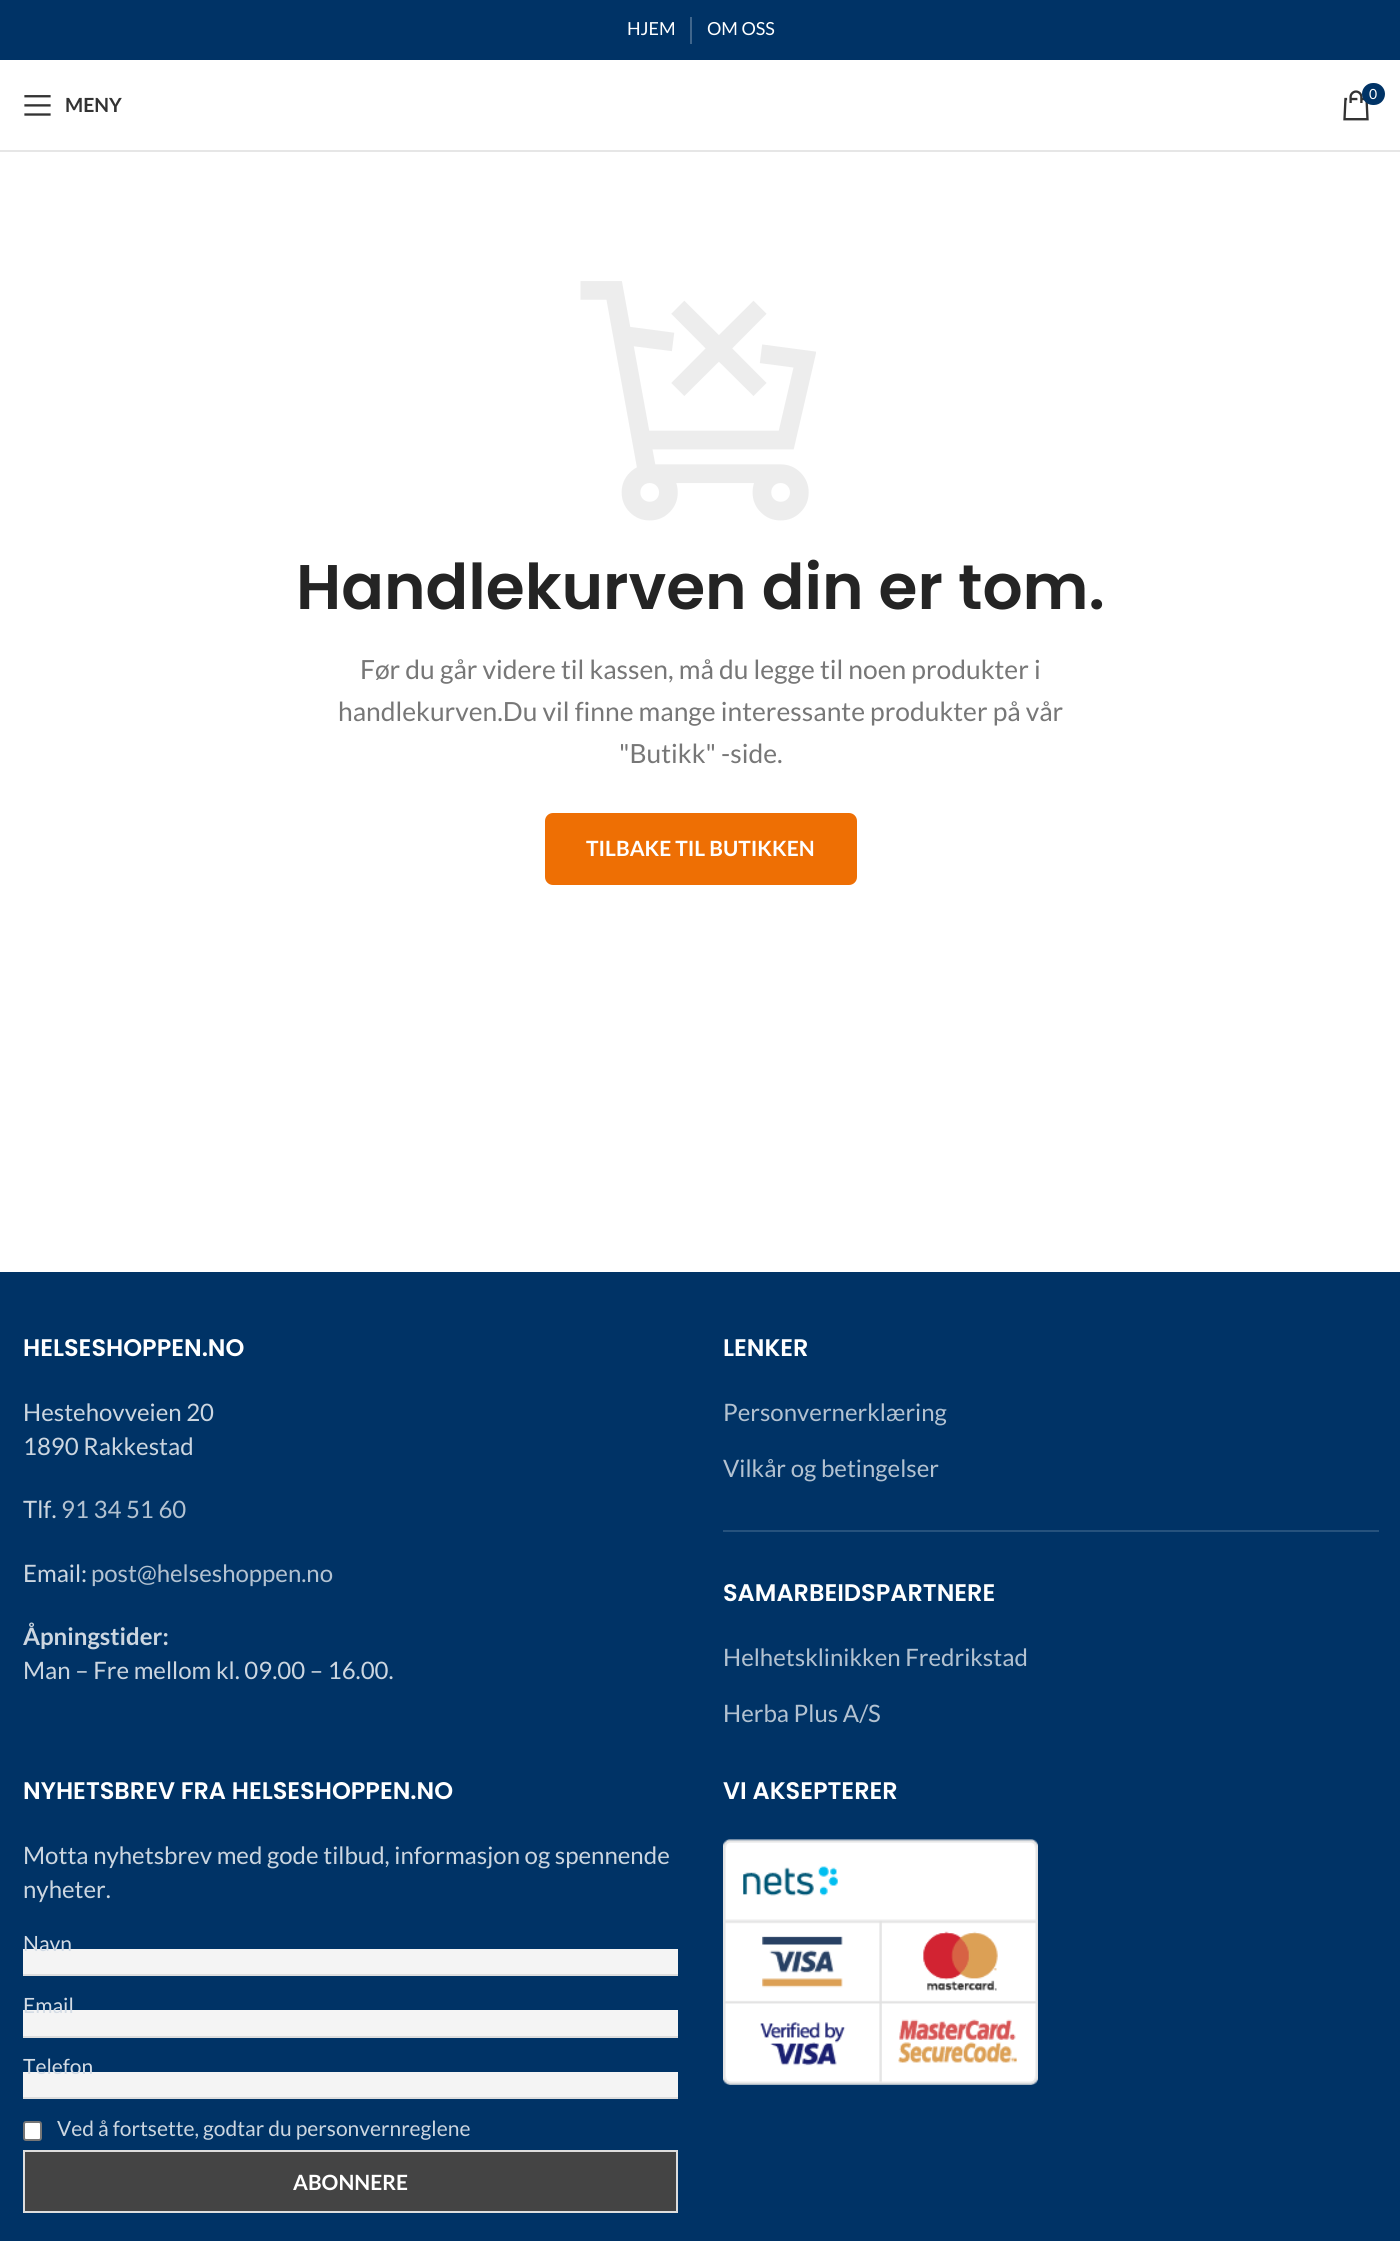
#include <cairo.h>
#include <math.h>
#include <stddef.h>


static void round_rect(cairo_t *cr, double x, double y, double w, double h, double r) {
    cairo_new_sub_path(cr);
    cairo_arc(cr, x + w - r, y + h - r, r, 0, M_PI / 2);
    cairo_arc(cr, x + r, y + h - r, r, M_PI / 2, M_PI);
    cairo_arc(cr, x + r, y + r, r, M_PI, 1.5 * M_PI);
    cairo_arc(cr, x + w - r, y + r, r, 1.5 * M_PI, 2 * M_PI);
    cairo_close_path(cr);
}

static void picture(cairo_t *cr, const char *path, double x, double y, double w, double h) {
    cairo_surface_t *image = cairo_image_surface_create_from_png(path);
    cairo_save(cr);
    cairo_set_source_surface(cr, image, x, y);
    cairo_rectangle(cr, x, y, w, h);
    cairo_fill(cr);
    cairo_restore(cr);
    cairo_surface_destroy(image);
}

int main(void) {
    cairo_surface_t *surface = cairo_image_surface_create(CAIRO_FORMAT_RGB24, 1400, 2241);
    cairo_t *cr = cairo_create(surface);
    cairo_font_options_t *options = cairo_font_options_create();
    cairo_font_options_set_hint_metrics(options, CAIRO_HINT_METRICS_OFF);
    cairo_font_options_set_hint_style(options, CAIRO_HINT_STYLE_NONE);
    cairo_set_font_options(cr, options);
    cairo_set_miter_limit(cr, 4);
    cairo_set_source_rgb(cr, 1, 1, 1);
    cairo_paint(cr);
    cairo_set_source_rgb(cr, 0, 0.2, 0.4);
    cairo_rectangle(cr, 0, 0, 1400, 60);
    cairo_fill(cr);
    cairo_select_font_face(cr, "Lato", CAIRO_FONT_SLANT_NORMAL, CAIRO_FONT_WEIGHT_NORMAL);
    cairo_set_font_size(cr, 18);
    cairo_set_source_rgb(cr, 1, 1, 1);
    cairo_move_to(cr, 627, 35);
    cairo_show_text(cr, "HJEM");
    cairo_set_source_rgb(cr, 0.251, 0.4, 0.549);
    cairo_rectangle(cr, 690, 17, 2, 27);
    cairo_fill(cr);
    cairo_set_source_rgb(cr, 1, 1, 1);
    cairo_move_to(cr, 707, 35);
    cairo_show_text(cr, "OM OSS");
    cairo_set_source_rgb(cr, 0.902, 0.902, 0.902);
    cairo_rectangle(cr, 0, 150, 1400, 2);
    cairo_fill(cr);
    picture(cr, "img1.png", 1343, 90, 26, 31);
    cairo_set_source_rgb(cr, 0, 0.2, 0.4);
    round_rect(cr, 1362, 83, 23, 22, 11);
    cairo_fill(cr);
    cairo_set_font_size(cr, 14);
    cairo_set_source_rgb(cr, 1, 1, 1);
    cairo_move_to(cr, 1369, 99);
    cairo_show_text(cr, "0");
    picture(cr, "img2.png", 24, 95, 27, 21);
    cairo_select_font_face(cr, "Lato", CAIRO_FONT_SLANT_NORMAL, CAIRO_FONT_WEIGHT_BOLD);
    cairo_set_font_size(cr, 19.5);
    cairo_set_source_rgb(cr, 0.2, 0.2, 0.2);
    cairo_move_to(cr, 65, 112);
    cairo_show_text(cr, "MENY");
    picture(cr, "img3.png", 580, 281, 236, 240);
    cairo_select_font_face(cr, "Poppins SemiBold", CAIRO_FONT_SLANT_NORMAL, CAIRO_FONT_WEIGHT_NORMAL);
    cairo_set_font_size(cr, 63);
    cairo_set_source_rgb(cr, 0.141, 0.141, 0.141);
    cairo_move_to(cr, 296, 609);
    cairo_show_text(cr, "Handlekurven din er tom.");
    cairo_select_font_face(cr, "Lato", CAIRO_FONT_SLANT_NORMAL, CAIRO_FONT_WEIGHT_NORMAL);
    cairo_set_font_size(cr, 26.4);
    cairo_set_source_rgb(cr, 0.467, 0.467, 0.467);
    cairo_move_to(cr, 360, 679);
    cairo_show_text(cr, "Før du går videre til kassen, må du legge til noen produkter i");
    cairo_move_to(cr, 338, 721);
    cairo_show_text(cr, "handlekurven.Du vil finne mange interessante produkter på vår");
    cairo_move_to(cr, 619, 763);
    cairo_show_text(cr, "\"Butikk\" -side.");
    cairo_set_source_rgb(cr, 0.933, 0.435, 0.016);
    round_rect(cr, 545, 813, 312, 72, 8);
    cairo_fill(cr);
    cairo_select_font_face(cr, "Lato", CAIRO_FONT_SLANT_NORMAL, CAIRO_FONT_WEIGHT_BOLD);
    cairo_set_font_size(cr, 21);
    cairo_set_source_rgb(cr, 1, 1, 1);
    cairo_move_to(cr, 586, 856);
    cairo_show_text(cr, "TILBAKE TIL BUTIKKEN");
    cairo_set_source_rgb(cr, 0, 0.2, 0.4);
    cairo_rectangle(cr, 0, 1272, 1400, 969);
    cairo_fill(cr);
    cairo_select_font_face(cr, "Poppins SemiBold", CAIRO_FONT_SLANT_NORMAL, CAIRO_FONT_WEIGHT_NORMAL);
    cairo_set_font_size(cr, 24);
    cairo_set_source_rgb(cr, 1, 1, 1);
    cairo_move_to(cr, 23, 1356);
    cairo_show_text(cr, "HELSESHOPPEN.NO");
    cairo_select_font_face(cr, "Lato", CAIRO_FONT_SLANT_NORMAL, CAIRO_FONT_WEIGHT_NORMAL);
    cairo_set_source_rgb(cr, 0.8, 0.839, 0.878);
    cairo_move_to(cr, 23, 1421);
    cairo_show_text(cr, "Hestehovveien 20");
    cairo_move_to(cr, 23, 1455);
    cairo_show_text(cr, "1890 Rakkestad");
    cairo_move_to(cr, 23, 1518);
    cairo_show_text(cr, "Tlf.");
    cairo_set_source_rgb(cr, 0.702, 0.761, 0.82);
    cairo_move_to(cr, 61, 1518);
    cairo_show_text(cr, "91 34 51 60");
    cairo_set_source_rgb(cr, 0.8, 0.839, 0.878);
    cairo_move_to(cr, 23, 1582);
    cairo_show_text(cr, "Email:");
    cairo_set_source_rgb(cr, 0.702, 0.761, 0.82);
    cairo_move_to(cr, 91, 1582);
    cairo_show_text(cr, "post@helseshoppen.no");
    cairo_select_font_face(cr, "Lato", CAIRO_FONT_SLANT_NORMAL, CAIRO_FONT_WEIGHT_BOLD);
    cairo_set_source_rgb(cr, 0.8, 0.839, 0.878);
    cairo_move_to(cr, 23, 1645);
    cairo_show_text(cr, "Åpningstider:");
    cairo_select_font_face(cr, "Lato", CAIRO_FONT_SLANT_NORMAL, CAIRO_FONT_WEIGHT_NORMAL);
    cairo_move_to(cr, 23, 1679);
    cairo_show_text(cr, "Man – Fre mellom kl. 09.00 – 16.00.");
    cairo_set_source_rgb(cr, 0.149, 0.322, 0.49);
    cairo_rectangle(cr, 723, 1530, 656, 2);
    cairo_fill(cr);
    cairo_select_font_face(cr, "Poppins SemiBold", CAIRO_FONT_SLANT_NORMAL, CAIRO_FONT_WEIGHT_NORMAL);
    cairo_set_source_rgb(cr, 1, 1, 1);
    cairo_move_to(cr, 723, 1356);
    cairo_show_text(cr, "LENKER");
    cairo_select_font_face(cr, "Lato", CAIRO_FONT_SLANT_NORMAL, CAIRO_FONT_WEIGHT_NORMAL);
    cairo_set_source_rgb(cr, 0.702, 0.761, 0.82);
    cairo_move_to(cr, 723, 1421);
    cairo_show_text(cr, "Personvernerklæring");
    cairo_move_to(cr, 723, 1477);
    cairo_show_text(cr, "Vilkår og betingelser");
    cairo_select_font_face(cr, "Poppins SemiBold", CAIRO_FONT_SLANT_NORMAL, CAIRO_FONT_WEIGHT_NORMAL);
    cairo_set_source_rgb(cr, 1, 1, 1);
    cairo_move_to(cr, 723, 1601);
    cairo_show_text(cr, "SAMARBEIDSPARTNERE");
    cairo_select_font_face(cr, "Lato", CAIRO_FONT_SLANT_NORMAL, CAIRO_FONT_WEIGHT_NORMAL);
    cairo_set_source_rgb(cr, 0.702, 0.761, 0.82);
    cairo_move_to(cr, 723, 1666);
    cairo_show_text(cr, "Helhetsklinikken Fredrikstad");
    cairo_move_to(cr, 723, 1722);
    cairo_show_text(cr, "Herba Plus A/S");
    cairo_select_font_face(cr, "Poppins SemiBold", CAIRO_FONT_SLANT_NORMAL, CAIRO_FONT_WEIGHT_NORMAL);
    cairo_set_source_rgb(cr, 1, 1, 1);
    cairo_move_to(cr, 23, 1799);
    cairo_show_text(cr, "NYHETSBREV FRA HELSESHOPPEN.NO");
    cairo_select_font_face(cr, "Lato", CAIRO_FONT_SLANT_NORMAL, CAIRO_FONT_WEIGHT_NORMAL);
    cairo_set_source_rgb(cr, 0.8, 0.839, 0.878);
    cairo_move_to(cr, 23, 1864);
    cairo_show_text(cr, "Motta nyhetsbrev med gode tilbud, informasjon og spennende");
    cairo_move_to(cr, 23, 1898);
    cairo_show_text(cr, "nyheter.");
    cairo_set_source_rgb(cr, 0.957, 0.957, 0.957);
    cairo_rectangle(cr, 23, 1949, 655, 25);
    cairo_fill(cr);
    cairo_set_font_size(cr, 21);
    cairo_set_source_rgb(cr, 0.831, 0.863, 0.898);
    cairo_move_to(cr, 23, 1951);
    cairo_show_text(cr, "Navn");
    cairo_set_source_rgb(cr, 0.867, 0.867, 0.867);
    cairo_rectangle(cr, 23, 1974, 655, 2);
    cairo_fill(cr);
    cairo_set_source_rgb(cr, 0.957, 0.957, 0.957);
    cairo_rectangle(cr, 23, 2010, 655, 26);
    cairo_fill(cr);
    cairo_set_source_rgb(cr, 0.831, 0.863, 0.898);
    cairo_move_to(cr, 23, 2013);
    cairo_show_text(cr, "Email");
    cairo_set_source_rgb(cr, 0.867, 0.867, 0.867);
    cairo_rectangle(cr, 23, 2036, 655, 2);
    cairo_fill(cr);
    cairo_set_source_rgb(cr, 0.957, 0.957, 0.957);
    cairo_rectangle(cr, 23, 2072, 655, 25);
    cairo_fill(cr);
    cairo_set_source_rgb(cr, 0.831, 0.863, 0.898);
    cairo_move_to(cr, 23, 2074);
    cairo_show_text(cr, "Telefon");
    cairo_set_source_rgb(cr, 0.867, 0.867, 0.867);
    cairo_rectangle(cr, 23, 2097, 655, 2);
    cairo_fill(cr);
    cairo_set_source_rgb(cr, 1, 1, 1);
    round_rect(cr, 24, 2122, 17, 18, 2);
    cairo_fill_preserve(cr);
    cairo_set_source_rgb(cr, 0.463, 0.463, 0.463);
    cairo_stroke(cr);
    cairo_set_source_rgb(cr, 0.8, 0.839, 0.878);
    cairo_move_to(cr, 57, 2136);
    cairo_show_text(cr, "Ved å fortsette, godtar du personvernreglene");
    cairo_set_source_rgb(cr, 0.267, 0.267, 0.267);
    cairo_rectangle(cr, 24, 2151, 653, 61);
    cairo_fill_preserve(cr);
    cairo_set_source_rgb(cr, 0.867, 0.867, 0.867);
    cairo_stroke(cr);
    cairo_select_font_face(cr, "Lato", CAIRO_FONT_SLANT_NORMAL, CAIRO_FONT_WEIGHT_BOLD);
    cairo_set_source_rgb(cr, 1, 1, 1);
    cairo_move_to(cr, 293, 2190);
    cairo_show_text(cr, "ABONNERE");
    cairo_select_font_face(cr, "Poppins SemiBold", CAIRO_FONT_SLANT_NORMAL, CAIRO_FONT_WEIGHT_NORMAL);
    cairo_set_font_size(cr, 24);
    cairo_move_to(cr, 723, 1799);
    cairo_show_text(cr, "VI AKSEPTERER");
    picture(cr, "img4.png", 723, 1839, 315, 246);
    cairo_surface_write_to_png(surface, "page.png");
    cairo_font_options_destroy(options);
    cairo_destroy(cr);
    cairo_surface_destroy(surface);
    return 0;
}
